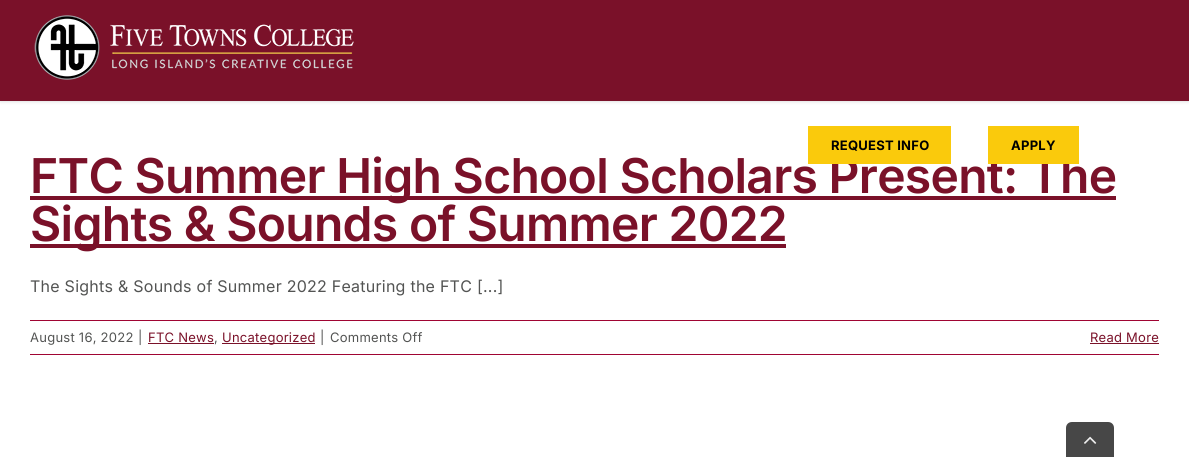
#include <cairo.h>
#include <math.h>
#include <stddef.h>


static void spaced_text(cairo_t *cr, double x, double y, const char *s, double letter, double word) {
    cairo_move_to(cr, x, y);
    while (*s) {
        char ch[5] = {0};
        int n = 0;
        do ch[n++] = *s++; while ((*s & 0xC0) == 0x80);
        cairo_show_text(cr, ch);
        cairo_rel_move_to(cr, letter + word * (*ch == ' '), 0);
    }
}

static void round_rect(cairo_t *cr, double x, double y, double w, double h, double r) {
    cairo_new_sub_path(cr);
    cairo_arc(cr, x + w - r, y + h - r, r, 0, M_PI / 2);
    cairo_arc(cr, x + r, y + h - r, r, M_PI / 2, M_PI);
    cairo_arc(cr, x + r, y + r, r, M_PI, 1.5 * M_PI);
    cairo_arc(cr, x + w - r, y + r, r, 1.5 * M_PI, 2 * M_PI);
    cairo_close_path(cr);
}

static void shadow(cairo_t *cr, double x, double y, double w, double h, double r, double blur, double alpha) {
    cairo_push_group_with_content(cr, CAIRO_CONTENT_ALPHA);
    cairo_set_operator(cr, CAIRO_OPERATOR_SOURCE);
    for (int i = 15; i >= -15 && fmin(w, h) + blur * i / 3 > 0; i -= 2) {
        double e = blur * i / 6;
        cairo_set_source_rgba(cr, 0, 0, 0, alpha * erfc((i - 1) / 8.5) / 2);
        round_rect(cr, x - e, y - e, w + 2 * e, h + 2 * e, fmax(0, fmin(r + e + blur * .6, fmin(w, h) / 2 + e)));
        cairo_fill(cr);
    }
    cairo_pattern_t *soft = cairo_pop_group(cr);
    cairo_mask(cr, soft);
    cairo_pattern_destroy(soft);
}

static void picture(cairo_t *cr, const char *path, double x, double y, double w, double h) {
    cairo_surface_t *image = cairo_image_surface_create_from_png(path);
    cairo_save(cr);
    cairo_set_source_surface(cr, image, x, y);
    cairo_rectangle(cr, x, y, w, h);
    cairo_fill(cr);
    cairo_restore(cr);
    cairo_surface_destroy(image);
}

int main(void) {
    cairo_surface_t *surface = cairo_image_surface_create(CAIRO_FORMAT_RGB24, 1189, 457);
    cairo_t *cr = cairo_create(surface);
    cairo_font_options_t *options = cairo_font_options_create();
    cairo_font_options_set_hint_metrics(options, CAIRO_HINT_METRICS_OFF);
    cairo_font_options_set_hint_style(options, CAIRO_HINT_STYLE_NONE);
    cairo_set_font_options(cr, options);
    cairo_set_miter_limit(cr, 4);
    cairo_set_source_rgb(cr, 1, 1, 1);
    cairo_paint(cr);
    cairo_set_source_rgb(cr, 0, 0, 0);
    shadow(cr, 0, 1, 1189, 101, 0, 1.5, 0.12);
    cairo_set_source_rgb(cr, 0.478, 0.067, 0.161);
    cairo_rectangle(cr, 0, 0, 1189, 101);
    cairo_fill(cr);
    picture(cr, "img1.png", 34, 15, 320, 65);
    cairo_rectangle(cr, 30, 196, 1086, 4);
    cairo_fill(cr);
    cairo_select_font_face(cr, "Inter SemiBold", CAIRO_FONT_SLANT_NORMAL, CAIRO_FONT_WEIGHT_NORMAL);
    cairo_set_font_size(cr, 48);
    spaced_text(cr, 30, 193, "FTC Summer High School Scholars Present: The", -0.7, 0);
    cairo_set_source_rgb(cr, 0.98, 0.792, 0.047);
    cairo_rectangle(cr, 808, 126, 143, 38);
    cairo_fill(cr);
    cairo_select_font_face(cr, "Inter", CAIRO_FONT_SLANT_NORMAL, CAIRO_FONT_WEIGHT_BOLD);
    cairo_set_font_size(cr, 13);
    cairo_set_source_rgb(cr, 0, 0, 0);
    spaced_text(cr, 831, 150, "REQUEST INFO", 0.25, 0);
    cairo_set_source_rgb(cr, 0.98, 0.792, 0.047);
    cairo_rectangle(cr, 988, 126, 91, 38);
    cairo_fill(cr);
    cairo_set_source_rgb(cr, 0, 0, 0);
    spaced_text(cr, 1011, 150, "APPLY", 0.25, 0);
    cairo_set_source_rgb(cr, 0.478, 0.067, 0.161);
    cairo_rectangle(cr, 30, 244, 756, 4);
    cairo_fill(cr);
    cairo_select_font_face(cr, "Inter SemiBold", CAIRO_FONT_SLANT_NORMAL, CAIRO_FONT_WEIGHT_NORMAL);
    cairo_set_font_size(cr, 48);
    spaced_text(cr, 30, 241, "Sights & Sounds of Summer 2022", -0.7, 0);
    cairo_select_font_face(cr, "Inter", CAIRO_FONT_SLANT_NORMAL, CAIRO_FONT_WEIGHT_NORMAL);
    cairo_set_font_size(cr, 16);
    cairo_set_source_rgb(cr, 0.325, 0.329, 0.325);
    spaced_text(cr, 30, 292, "The Sights & Sounds of Summer 2022 Featuring the FTC [...]", 0.25, 0);
    cairo_set_source_rgb(cr, 0.627, 0.016, 0.2);
    cairo_rectangle(cr, 30, 320, 1129, 1);
    cairo_fill(cr);
    cairo_rectangle(cr, 30, 354, 1129, 1);
    cairo_fill(cr);
    cairo_set_font_size(cr, 13);
    cairo_set_source_rgb(cr, 0.325, 0.329, 0.325);
    spaced_text(cr, 30, 342, "August 16, 2022", 0.25, 0);
    spaced_text(cr, 138, 342, "|", 0.25, 0);
    cairo_set_source_rgb(cr, 0.478, 0.067, 0.161);
    spaced_text(cr, 148, 342, "FTC News", 0.25, 0);
    cairo_rectangle(cr, 148, 343, 66, 1);
    cairo_fill(cr);
    cairo_set_source_rgb(cr, 0.325, 0.329, 0.325);
    spaced_text(cr, 214, 342, ",", 0.25, 0);
    cairo_set_source_rgb(cr, 0.478, 0.067, 0.161);
    cairo_rectangle(cr, 222, 343, 93, 1);
    cairo_fill(cr);
    spaced_text(cr, 222, 342, "Uncategorized", 0.25, 0);
    cairo_set_source_rgb(cr, 0.325, 0.329, 0.325);
    spaced_text(cr, 320, 342, "|", 0.25, 0);
    spaced_text(cr, 330, 342, "Comments Off", 0.25, 0);
    cairo_set_source_rgb(cr, 0.478, 0.067, 0.161);
    spaced_text(cr, 1090, 342, "Read More", 0.25, 0);
    cairo_rectangle(cr, 1090, 343, 69, 1);
    cairo_fill(cr);
    cairo_set_source_rgb(cr, 0.278, 0.278, 0.278);
    cairo_new_path(cr);
    cairo_move_to(cr, 1072, 422);
    cairo_line_to(cr, 1108, 422);
    cairo_curve_to(cr, 1111.5, 422, 1114, 424.5, 1114, 428);
    cairo_line_to(cr, 1114, 457);
    cairo_line_to(cr, 1066, 457);
    cairo_line_to(cr, 1066, 428);
    cairo_curve_to(cr, 1066, 424.5, 1068.5, 422, 1072, 422);
    cairo_close_path(cr);
    cairo_fill(cr);
    picture(cr, "img2.png", 1084, 436, 13, 8);
    cairo_surface_write_to_png(surface, "page.png");
    cairo_font_options_destroy(options);
    cairo_destroy(cr);
    cairo_surface_destroy(surface);
    return 0;
}
